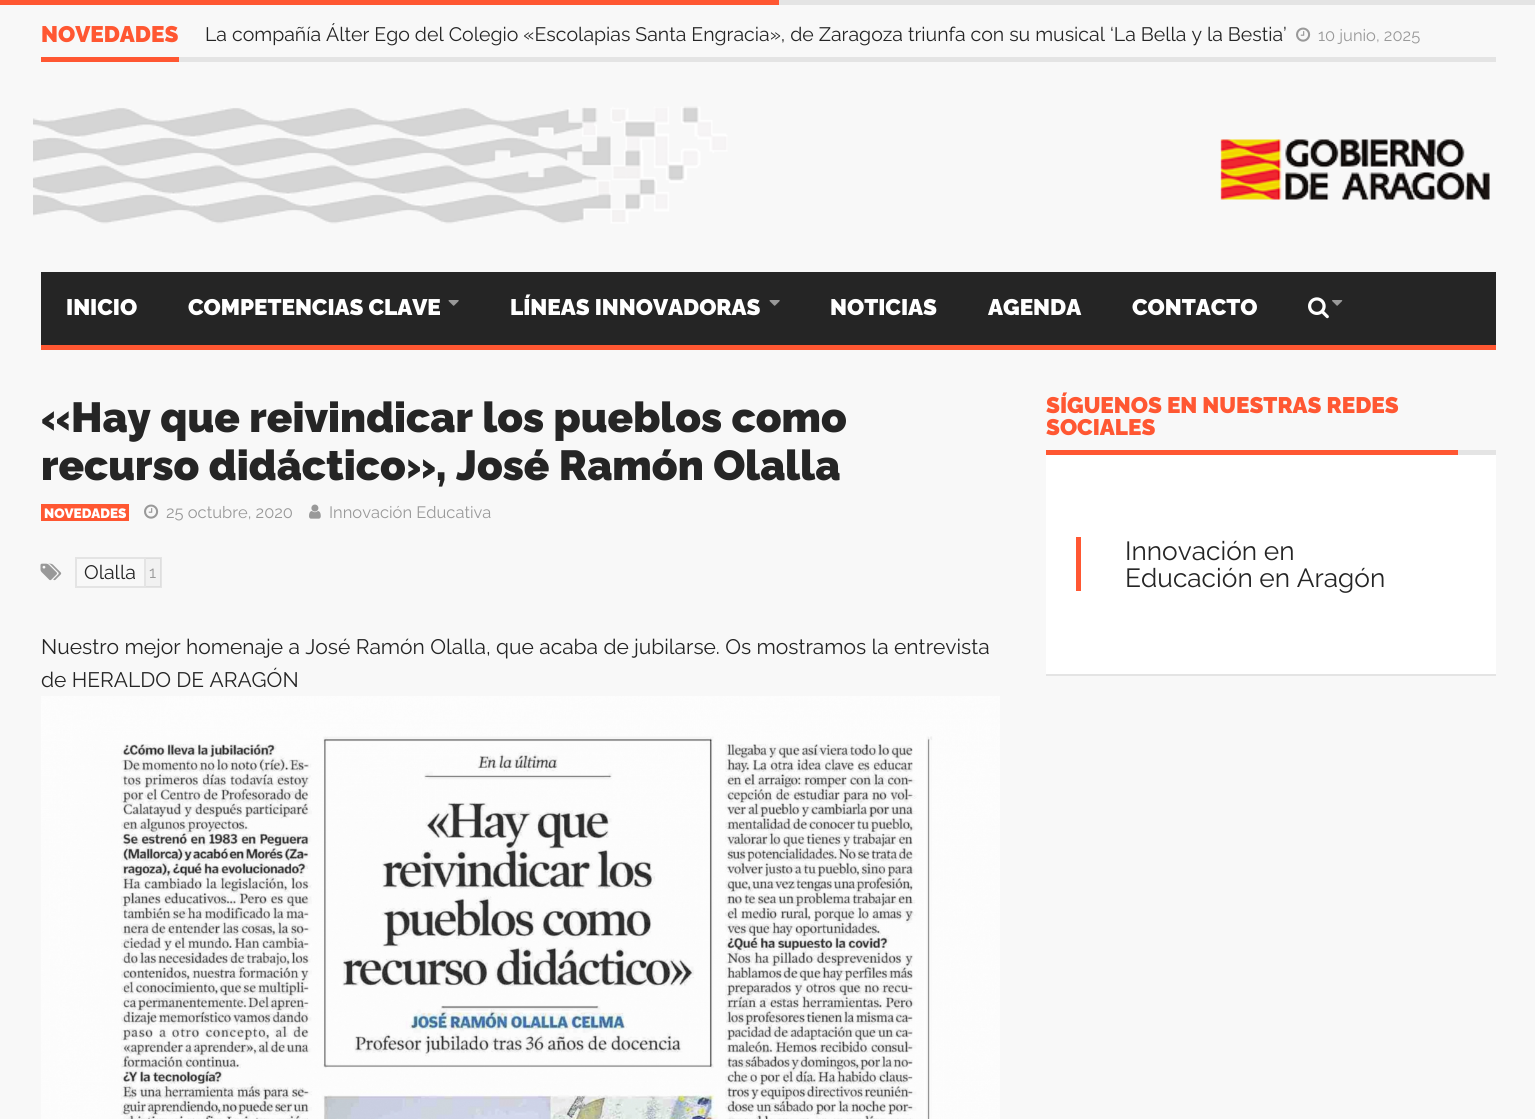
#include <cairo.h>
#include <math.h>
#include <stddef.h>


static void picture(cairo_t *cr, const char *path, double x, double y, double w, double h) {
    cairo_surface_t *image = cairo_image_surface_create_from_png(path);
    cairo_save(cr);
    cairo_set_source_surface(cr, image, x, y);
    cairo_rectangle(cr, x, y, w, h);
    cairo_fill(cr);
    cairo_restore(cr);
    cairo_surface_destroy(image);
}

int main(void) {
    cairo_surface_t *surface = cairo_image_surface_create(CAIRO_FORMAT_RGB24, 1535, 1119);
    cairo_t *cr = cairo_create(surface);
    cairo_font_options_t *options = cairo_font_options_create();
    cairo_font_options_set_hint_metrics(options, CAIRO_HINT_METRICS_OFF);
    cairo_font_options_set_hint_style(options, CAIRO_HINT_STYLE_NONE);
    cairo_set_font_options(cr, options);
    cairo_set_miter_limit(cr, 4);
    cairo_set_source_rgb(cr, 0.969, 0.969, 0.969);
    cairo_paint(cr);
    cairo_set_source_rgb(cr, 0.894, 0.894, 0.894);
    cairo_rectangle(cr, 779, 0, 756, 5);
    cairo_fill(cr);
    cairo_set_source_rgb(cr, 1, 0.341, 0.196);
    cairo_rectangle(cr, 0, 0, 779, 5);
    cairo_fill(cr);
    cairo_set_source_rgb(cr, 0.894, 0.894, 0.894);
    cairo_rectangle(cr, 179, 57, 1317, 5);
    cairo_fill(cr);
    cairo_set_source_rgb(cr, 1, 0.341, 0.196);
    cairo_rectangle(cr, 41, 57, 138, 5);
    cairo_fill(cr);
    cairo_select_font_face(cr, "Raleway Black", CAIRO_FONT_SLANT_NORMAL, CAIRO_FONT_WEIGHT_NORMAL);
    cairo_set_font_size(cr, 22.5);
    cairo_move_to(cr, 41, 42);
    cairo_show_text(cr, "NOVEDADES");
    cairo_select_font_face(cr, "Raleway", CAIRO_FONT_SLANT_NORMAL, CAIRO_FONT_WEIGHT_NORMAL);
    cairo_set_font_size(cr, 19.5);
    cairo_set_source_rgb(cr, 0.145, 0.145, 0.145);
    cairo_move_to(cr, 205, 41);
    cairo_show_text(cr, "La compañía Álter Ego del Colegio «Escolapias Santa Engracia», de Zaragoza triunfa con su musical ‘La Bella y la Bestia’");
    picture(cr, "img1.png", 1296, 27, 15, 15);
    cairo_set_font_size(cr, 16.5);
    cairo_set_source_rgb(cr, 0.6, 0.6, 0.6);
    cairo_move_to(cr, 1318, 41);
    cairo_show_text(cr, "10 junio, 2025");
    picture(cr, "img2.png", 33, 106, 1457, 118);
    cairo_set_source_rgb(cr, 1, 0.341, 0.196);
    cairo_new_path(cr);
    cairo_move_to(cr, 41, 345);
    cairo_line_to(cr, 41, 350);
    cairo_line_to(cr, 1496, 350);
    cairo_line_to(cr, 1496, 276);
    cairo_line_to(cr, 1496, 345);
    cairo_close_path(cr);
    cairo_fill(cr);
    cairo_set_source_rgb(cr, 0.145, 0.145, 0.145);
    cairo_rectangle(cr, 41, 272, 1455, 73);
    cairo_fill(cr);
    cairo_select_font_face(cr, "Raleway Black", CAIRO_FONT_SLANT_NORMAL, CAIRO_FONT_WEIGHT_NORMAL);
    cairo_set_font_size(cr, 22.5);
    cairo_set_source_rgb(cr, 1, 1, 1);
    cairo_move_to(cr, 66, 315);
    cairo_show_text(cr, "INICIO");
    cairo_move_to(cr, 188, 315);
    cairo_show_text(cr, "COMPETENCIAS CLAVE");
    picture(cr, "img3.png", 448, 300, 11, 6);
    cairo_move_to(cr, 510, 315);
    cairo_show_text(cr, "LÍNEAS INNOVADORAS");
    picture(cr, "img3.png", 769, 300, 11, 6);
    cairo_move_to(cr, 830, 315);
    cairo_show_text(cr, "NOTICIAS");
    cairo_move_to(cr, 988, 315);
    cairo_show_text(cr, "AGENDA");
    cairo_move_to(cr, 1132, 315);
    cairo_show_text(cr, "CONTACTO");
    picture(cr, "img4.png", 1308, 297, 21, 22);
    picture(cr, "img5.png", 1332, 300, 11, 6);
    cairo_set_font_size(cr, 42);
    cairo_set_source_rgb(cr, 0.145, 0.145, 0.145);
    cairo_move_to(cr, 41, 432);
    cairo_show_text(cr, "«Hay que reivindicar los pueblos como");
    cairo_move_to(cr, 41, 480);
    cairo_show_text(cr, "recurso didáctico», José Ramón Olalla");
    cairo_set_source_rgb(cr, 1, 0.341, 0.196);
    cairo_rectangle(cr, 41, 504, 88, 17);
    cairo_fill(cr);
    cairo_set_font_size(cr, 13.5);
    cairo_set_source_rgb(cr, 1, 1, 1);
    cairo_move_to(cr, 44, 518);
    cairo_show_text(cr, "NOVEDADES");
    picture(cr, "img1.png", 144, 504, 15, 15);
    cairo_select_font_face(cr, "Raleway", CAIRO_FONT_SLANT_NORMAL, CAIRO_FONT_WEIGHT_NORMAL);
    cairo_set_font_size(cr, 16.5);
    cairo_set_source_rgb(cr, 0.6, 0.6, 0.6);
    cairo_move_to(cr, 166, 518);
    cairo_show_text(cr, "25 octubre, 2020");
    picture(cr, "img6.png", 309, 504, 12, 15);
    cairo_move_to(cr, 329, 518);
    cairo_show_text(cr, "Innovación Educativa");
    picture(cr, "img7.png", 40, 563, 22, 18);
    cairo_rectangle(cr, 76, 558, 85, 29);
    cairo_set_source_rgb(cr, 0.894, 0.894, 0.894);
    cairo_stroke(cr);
    cairo_set_font_size(cr, 19.5);
    cairo_set_source_rgb(cr, 0.145, 0.145, 0.145);
    cairo_move_to(cr, 84, 579);
    cairo_show_text(cr, "Olalla");
    cairo_set_source_rgba(cr, 0, 0, 0, 0.03);
    cairo_rectangle(cr, 146, 558, 15, 29);
    cairo_fill(cr);
    cairo_set_source_rgb(cr, 0.894, 0.894, 0.894);
    cairo_rectangle(cr, 144, 558, 2, 29);
    cairo_fill(cr);
    cairo_set_font_size(cr, 16.5);
    cairo_set_source_rgb(cr, 0.6, 0.6, 0.6);
    cairo_move_to(cr, 149, 578);
    cairo_show_text(cr, "1");
    cairo_set_font_size(cr, 21);
    cairo_set_source_rgb(cr, 0.145, 0.145, 0.145);
    cairo_move_to(cr, 41, 654);
    cairo_show_text(cr, "Nuestro mejor homenaje a José Ramón Olalla, que acaba de jubilarse. Os mostramos la entrevista");
    cairo_move_to(cr, 41, 687);
    cairo_show_text(cr, "de HERALDO DE ARAGÓN");
    picture(cr, "img8.png", 41, 696, 959, 423);
    cairo_set_source_rgb(cr, 0.894, 0.894, 0.894);
    cairo_rectangle(cr, 1458, 450, 38, 5);
    cairo_fill(cr);
    cairo_set_source_rgb(cr, 1, 0.341, 0.196);
    cairo_rectangle(cr, 1046, 450, 412, 5);
    cairo_fill(cr);
    cairo_select_font_face(cr, "Raleway Black", CAIRO_FONT_SLANT_NORMAL, CAIRO_FONT_WEIGHT_NORMAL);
    cairo_set_font_size(cr, 22.5);
    cairo_move_to(cr, 1046, 413);
    cairo_show_text(cr, "SÍGUENOS EN NUESTRAS REDES");
    cairo_move_to(cr, 1046, 435);
    cairo_show_text(cr, "SOCIALES");
    cairo_set_source_rgb(cr, 1, 1, 1);
    cairo_rectangle(cr, 1046, 455, 450, 219);
    cairo_fill(cr);
    cairo_set_source_rgb(cr, 0.894, 0.894, 0.894);
    cairo_rectangle(cr, 1046, 674, 450, 2);
    cairo_fill(cr);
    cairo_set_source_rgb(cr, 1, 0.341, 0.196);
    cairo_rectangle(cr, 1076, 537, 5, 54);
    cairo_fill(cr);
    cairo_select_font_face(cr, "Raleway", CAIRO_FONT_SLANT_NORMAL, CAIRO_FONT_WEIGHT_NORMAL);
    cairo_set_font_size(cr, 26.25);
    cairo_set_source_rgb(cr, 0.145, 0.145, 0.145);
    cairo_move_to(cr, 1125, 560);
    cairo_show_text(cr, "Innovación en");
    cairo_move_to(cr, 1125, 587);
    cairo_show_text(cr, "Educación en Aragón");
    cairo_surface_write_to_png(surface, "page.png");
    cairo_font_options_destroy(options);
    cairo_destroy(cr);
    cairo_surface_destroy(surface);
    return 0;
}
